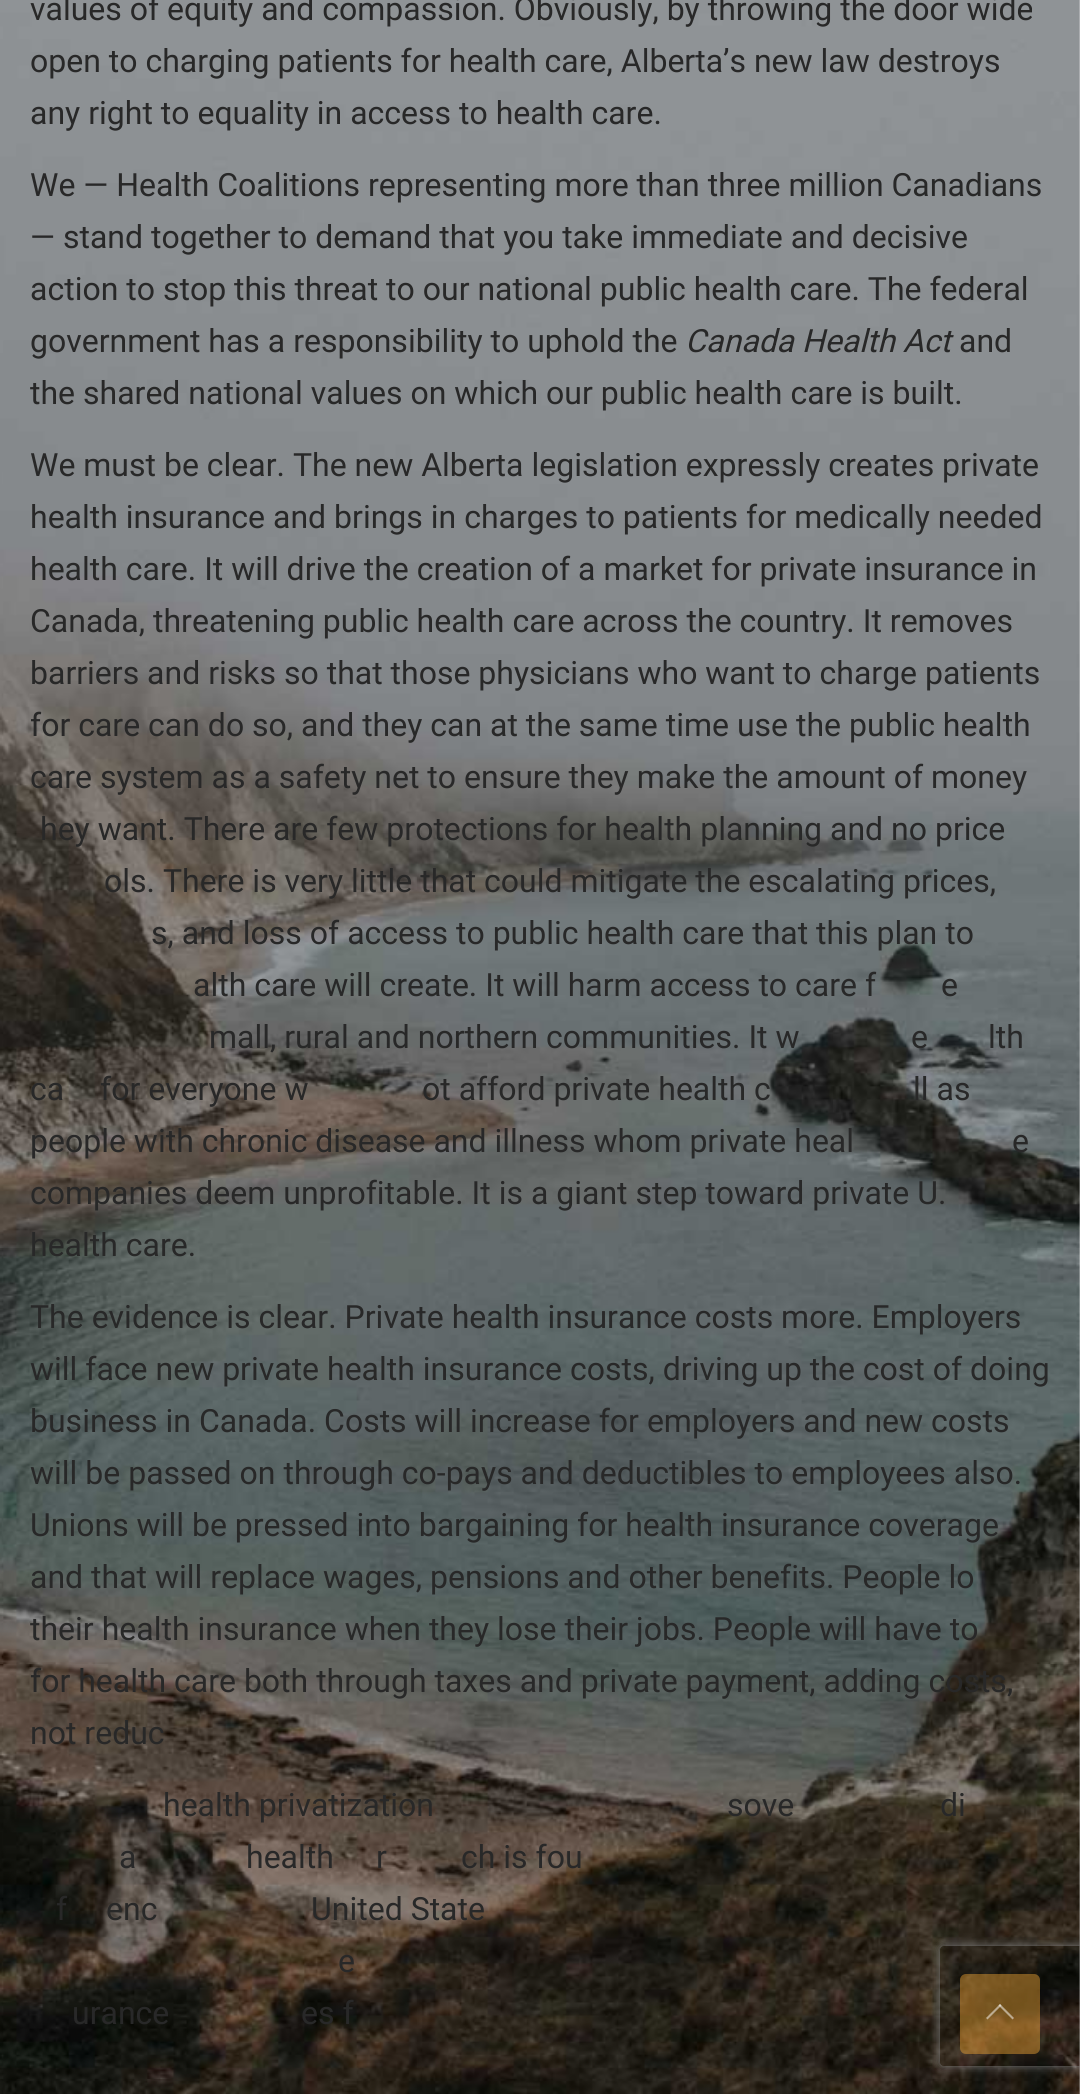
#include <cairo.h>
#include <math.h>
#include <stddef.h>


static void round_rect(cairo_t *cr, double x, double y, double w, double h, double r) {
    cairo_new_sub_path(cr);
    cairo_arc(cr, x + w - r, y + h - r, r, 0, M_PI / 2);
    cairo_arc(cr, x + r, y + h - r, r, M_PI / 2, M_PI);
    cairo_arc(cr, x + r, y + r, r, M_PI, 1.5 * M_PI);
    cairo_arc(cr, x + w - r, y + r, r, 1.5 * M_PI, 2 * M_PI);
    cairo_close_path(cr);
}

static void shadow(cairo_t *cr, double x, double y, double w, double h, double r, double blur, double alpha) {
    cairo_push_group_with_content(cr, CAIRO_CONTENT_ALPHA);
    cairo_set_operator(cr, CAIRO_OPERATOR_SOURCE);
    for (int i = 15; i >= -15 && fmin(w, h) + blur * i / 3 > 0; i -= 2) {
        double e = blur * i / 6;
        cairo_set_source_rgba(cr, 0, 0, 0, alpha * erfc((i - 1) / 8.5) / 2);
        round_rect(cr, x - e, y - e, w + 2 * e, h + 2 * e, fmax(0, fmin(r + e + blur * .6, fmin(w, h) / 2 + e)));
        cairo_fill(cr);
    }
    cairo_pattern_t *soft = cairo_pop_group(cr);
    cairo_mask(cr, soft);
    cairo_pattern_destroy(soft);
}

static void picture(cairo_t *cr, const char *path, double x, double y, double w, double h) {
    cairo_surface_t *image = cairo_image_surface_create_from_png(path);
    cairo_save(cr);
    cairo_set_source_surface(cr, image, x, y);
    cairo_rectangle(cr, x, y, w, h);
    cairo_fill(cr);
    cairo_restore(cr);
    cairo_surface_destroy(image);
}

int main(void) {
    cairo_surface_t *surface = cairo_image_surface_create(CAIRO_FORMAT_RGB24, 1080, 2094);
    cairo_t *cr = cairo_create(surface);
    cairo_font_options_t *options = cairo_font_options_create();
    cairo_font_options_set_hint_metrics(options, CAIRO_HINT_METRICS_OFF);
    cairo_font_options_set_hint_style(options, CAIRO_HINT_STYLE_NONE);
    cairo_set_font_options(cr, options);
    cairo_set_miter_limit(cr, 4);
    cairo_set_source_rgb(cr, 1, 1, 1);
    cairo_paint(cr);
    picture(cr, "img1.png", 0, 0, 1080, 2094);
    cairo_select_font_face(cr, "Roboto", CAIRO_FONT_SLANT_NORMAL, CAIRO_FONT_WEIGHT_NORMAL);
    cairo_set_font_size(cr, 32);
    cairo_set_source_rgb(cr, 0.157, 0.157, 0.157);
    cairo_move_to(cr, 30, 20);
    cairo_show_text(cr, "values of equity and compassion. Obviously, by throwing the door wide");
    cairo_move_to(cr, 30, 72);
    cairo_show_text(cr, "open to charging patients for health care, Alberta’s new law destroys");
    cairo_move_to(cr, 30, 124);
    cairo_show_text(cr, "any right to equality in access to health care.");
    cairo_move_to(cr, 30, 196);
    cairo_show_text(cr, "We — Health Coalitions representing more than three million Canadians");
    cairo_move_to(cr, 30, 248);
    cairo_show_text(cr, "— stand together to demand that you take immediate and decisive");
    cairo_move_to(cr, 30, 300);
    cairo_show_text(cr, "action to stop this threat to our national public health care. The federal");
    cairo_move_to(cr, 30, 352);
    cairo_show_text(cr, "government has a responsibility to uphold the");
    cairo_select_font_face(cr, "Roboto", CAIRO_FONT_SLANT_ITALIC, CAIRO_FONT_WEIGHT_NORMAL);
    cairo_move_to(cr, 685, 352);
    cairo_show_text(cr, "Canada Health Act");
    cairo_select_font_face(cr, "Roboto", CAIRO_FONT_SLANT_NORMAL, CAIRO_FONT_WEIGHT_NORMAL);
    cairo_move_to(cr, 959, 352);
    cairo_show_text(cr, "and");
    cairo_move_to(cr, 30, 404);
    cairo_show_text(cr, "the shared national values on which our public health care is built.");
    cairo_move_to(cr, 30, 476);
    cairo_show_text(cr, "We must be clear. The new Alberta legislation expressly creates private");
    cairo_move_to(cr, 30, 528);
    cairo_show_text(cr, "health insurance and brings in charges to patients for medically needed");
    cairo_move_to(cr, 30, 580);
    cairo_show_text(cr, "health care. It will drive the creation of a market for private insurance in");
    cairo_move_to(cr, 30, 632);
    cairo_show_text(cr, "Canada, threatening public health care across the country. It removes");
    cairo_move_to(cr, 30, 684);
    cairo_show_text(cr, "barriers and risks so that those physicians who want to charge patients");
    cairo_move_to(cr, 30, 736);
    cairo_show_text(cr, "for care can do so, and they can at the same time use the public health");
    cairo_move_to(cr, 30, 788);
    cairo_show_text(cr, "care system as a safety net to ensure they make the amount of money");
    cairo_move_to(cr, 40, 840);
    cairo_show_text(cr, "hey want. There are few protections for health planning and no price");
    cairo_move_to(cr, 104, 892);
    cairo_show_text(cr, "ols. There is very little that could mitigate the escalating prices,");
    cairo_move_to(cr, 151, 944);
    cairo_show_text(cr, "s, and loss of access to public health care that this plan to");
    cairo_move_to(cr, 193, 996);
    cairo_show_text(cr, "alth care will create. It will harm access to care f");
    cairo_move_to(cr, 941, 996);
    cairo_show_text(cr, "e");
    cairo_move_to(cr, 209, 1048);
    cairo_show_text(cr, "mall, rural and northern communities. It w");
    cairo_move_to(cr, 911, 1048);
    cairo_show_text(cr, "e");
    cairo_move_to(cr, 988, 1048);
    cairo_show_text(cr, "lth");
    cairo_move_to(cr, 30, 1100);
    cairo_show_text(cr, "ca");
    cairo_move_to(cr, 100, 1100);
    cairo_show_text(cr, "for everyone w");
    cairo_move_to(cr, 422, 1100);
    cairo_show_text(cr, "ot afford private health c");
    cairo_move_to(cr, 913, 1100);
    cairo_show_text(cr, "ll as");
    cairo_move_to(cr, 30, 1152);
    cairo_show_text(cr, "people with chronic disease and illness whom private heal");
    cairo_move_to(cr, 1012, 1152);
    cairo_show_text(cr, "e");
    cairo_move_to(cr, 30, 1204);
    cairo_show_text(cr, "companies deem unprofitable. It is a giant step toward private U.");
    cairo_move_to(cr, 30, 1256);
    cairo_show_text(cr, "health care.");
    cairo_move_to(cr, 30, 1328);
    cairo_show_text(cr, "The evidence is clear. Private health insurance costs more. Employers");
    cairo_move_to(cr, 30, 1380);
    cairo_show_text(cr, "will face new private health insurance costs, driving up the cost of doing");
    cairo_move_to(cr, 30, 1432);
    cairo_show_text(cr, "business in Canada. Costs will increase for employers and new costs");
    cairo_move_to(cr, 30, 1484);
    cairo_show_text(cr, "will be passed on through co-pays and deductibles to employees also.");
    cairo_move_to(cr, 30, 1536);
    cairo_show_text(cr, "Unions will be pressed into bargaining for health insurance coverage");
    cairo_move_to(cr, 30, 1588);
    cairo_show_text(cr, "and that will replace wages, pensions and other benefits. People lo");
    cairo_move_to(cr, 30, 1640);
    cairo_show_text(cr, "their health insurance when they lose their jobs. People will have to");
    cairo_move_to(cr, 30, 1692);
    cairo_show_text(cr, "for health care both through taxes and private payment, adding costs,");
    cairo_move_to(cr, 30, 1744);
    cairo_show_text(cr, "not reduc");
    cairo_move_to(cr, 163, 1816);
    cairo_show_text(cr, "health privatization");
    cairo_move_to(cr, 727, 1816);
    cairo_show_text(cr, "sove");
    cairo_move_to(cr, 940, 1816);
    cairo_show_text(cr, "di");
    cairo_move_to(cr, 119, 1868);
    cairo_show_text(cr, "a");
    cairo_move_to(cr, 246, 1868);
    cairo_show_text(cr, "health");
    cairo_move_to(cr, 376, 1868);
    cairo_show_text(cr, "r");
    cairo_move_to(cr, 461, 1868);
    cairo_show_text(cr, "ch is fou");
    cairo_move_to(cr, 56, 1920);
    cairo_show_text(cr, "f");
    cairo_move_to(cr, 106, 1920);
    cairo_show_text(cr, "enc");
    cairo_move_to(cr, 311, 1920);
    cairo_show_text(cr, "United State");
    cairo_move_to(cr, 338, 1972);
    cairo_show_text(cr, "e");
    cairo_move_to(cr, 72, 2024);
    cairo_show_text(cr, "urance");
    cairo_move_to(cr, 301, 2024);
    cairo_show_text(cr, "es f");
    cairo_save(cr);
    cairo_set_fill_rule(cr, CAIRO_FILL_RULE_EVEN_ODD);
    cairo_new_path(cr);
    cairo_move_to(cr, 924, 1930);
    cairo_line_to(cr, 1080, 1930);
    cairo_line_to(cr, 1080, 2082);
    cairo_line_to(cr, 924, 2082);
    cairo_close_path(cr);
    cairo_move_to(cr, 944, 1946);
    cairo_line_to(cr, 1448, 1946);
    cairo_curve_to(cr, 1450, 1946, 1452, 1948, 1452, 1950);
    cairo_line_to(cr, 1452, 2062);
    cairo_curve_to(cr, 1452, 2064, 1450, 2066, 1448, 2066);
    cairo_line_to(cr, 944, 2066);
    cairo_curve_to(cr, 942, 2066, 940, 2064, 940, 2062);
    cairo_line_to(cr, 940, 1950);
    cairo_curve_to(cr, 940, 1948, 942, 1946, 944, 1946);
    cairo_close_path(cr);
    cairo_clip(cr);
    cairo_set_source_rgb(cr, 0.502, 0.502, 0.502);
    shadow(cr, 940, 1946, 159, 120, 4, 5, 1);
    cairo_restore(cr);
    cairo_set_source_rgba(cr, 0.867, 0.6, 0.2, 0.5);
    round_rect(cr, 960, 1974, 80, 80, 6);
    cairo_fill(cr);
    cairo_set_source_rgba(cr, 1, 1, 1, 0.5);
    cairo_new_path(cr);
    cairo_move_to(cr, 986, 2018);
    cairo_line_to(cr, 1000, 2004);
    cairo_line_to(cr, 1001.5, 2005.5);
    cairo_line_to(cr, 987.5, 2019.5);
    cairo_close_path(cr);
    cairo_fill(cr);
    cairo_new_path(cr);
    cairo_move_to(cr, 998.5, 2005.5);
    cairo_line_to(cr, 1000, 2004);
    cairo_line_to(cr, 1014, 2018);
    cairo_line_to(cr, 1012.5, 2019.5);
    cairo_close_path(cr);
    cairo_fill(cr);
    cairo_surface_write_to_png(surface, "page.png");
    cairo_font_options_destroy(options);
    cairo_destroy(cr);
    cairo_surface_destroy(surface);
    return 0;
}
